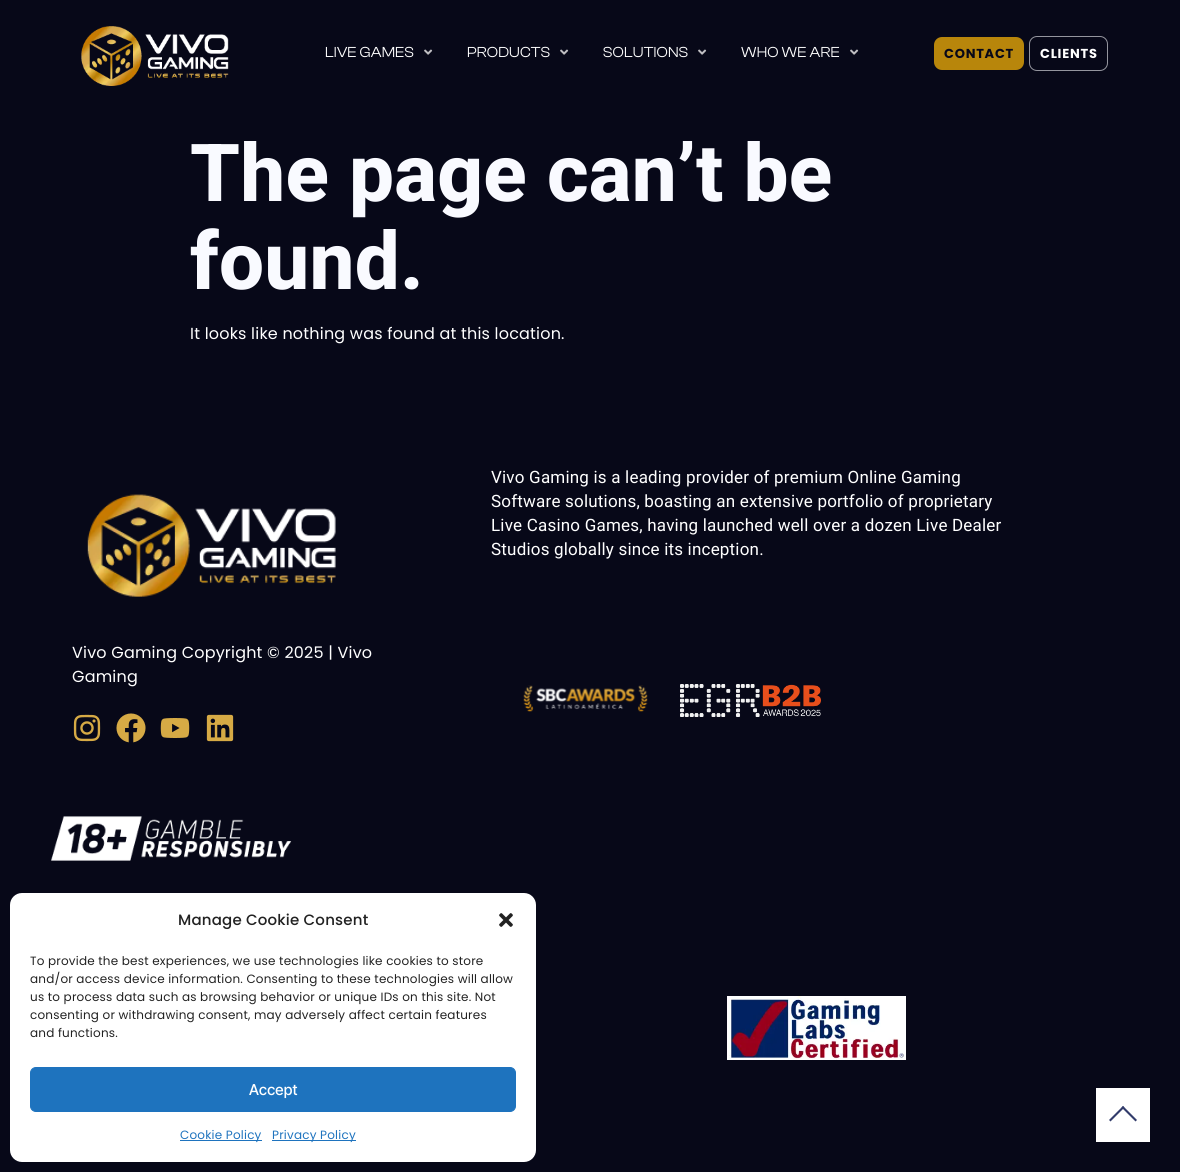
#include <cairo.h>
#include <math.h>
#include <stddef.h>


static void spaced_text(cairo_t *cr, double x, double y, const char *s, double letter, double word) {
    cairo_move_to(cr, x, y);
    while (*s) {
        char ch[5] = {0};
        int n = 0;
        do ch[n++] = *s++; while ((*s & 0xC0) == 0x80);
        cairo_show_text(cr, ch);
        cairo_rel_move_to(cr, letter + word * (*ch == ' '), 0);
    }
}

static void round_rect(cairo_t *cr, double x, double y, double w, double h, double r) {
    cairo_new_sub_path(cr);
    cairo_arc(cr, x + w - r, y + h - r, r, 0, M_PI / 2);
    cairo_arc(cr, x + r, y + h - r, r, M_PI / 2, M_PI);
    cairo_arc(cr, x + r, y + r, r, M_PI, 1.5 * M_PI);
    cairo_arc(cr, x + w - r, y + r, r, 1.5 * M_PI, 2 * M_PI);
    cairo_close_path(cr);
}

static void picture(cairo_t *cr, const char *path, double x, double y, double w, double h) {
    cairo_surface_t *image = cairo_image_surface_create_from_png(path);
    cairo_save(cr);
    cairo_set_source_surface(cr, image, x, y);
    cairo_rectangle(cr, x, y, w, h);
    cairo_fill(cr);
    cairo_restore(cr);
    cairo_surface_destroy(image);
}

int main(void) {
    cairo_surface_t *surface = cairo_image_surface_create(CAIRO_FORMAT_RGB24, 1180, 1172);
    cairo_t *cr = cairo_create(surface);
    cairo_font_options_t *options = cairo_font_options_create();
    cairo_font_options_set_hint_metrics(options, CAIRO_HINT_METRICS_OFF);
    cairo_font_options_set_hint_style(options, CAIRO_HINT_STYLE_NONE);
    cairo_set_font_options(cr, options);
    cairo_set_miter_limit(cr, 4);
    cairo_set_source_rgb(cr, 0.031, 0.035, 0.094);
    cairo_paint(cr);
    picture(cr, "img1.png", 81, 26, 148, 60);
    cairo_select_font_face(cr, "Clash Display", CAIRO_FONT_SLANT_NORMAL, CAIRO_FONT_WEIGHT_NORMAL);
    cairo_set_font_size(cr, 15);
    cairo_set_source_rgb(cr, 1, 1, 1);
    spaced_text(cr, 325, 57, "LIVE GAMES", 0.2, 0);
    picture(cr, "img2.png", 424, 49, 9, 6);
    spaced_text(cr, 467, 57, "PRODUCTS", 0.2, 0);
    picture(cr, "img2.png", 560, 49, 9, 6);
    spaced_text(cr, 603, 57, "SOLUTIONS", 0.2, 0);
    picture(cr, "img2.png", 698, 49, 9, 6);
    spaced_text(cr, 741, 57, "WHO WE ARE", 0.2, 0);
    picture(cr, "img2.png", 850, 49, 9, 6);
    cairo_set_source_rgb(cr, 0.722, 0.525, 0.043);
    round_rect(cr, 934, 37, 90, 33, 8);
    cairo_fill(cr);
    cairo_select_font_face(cr, "Poppins", CAIRO_FONT_SLANT_NORMAL, CAIRO_FONT_WEIGHT_BOLD);
    cairo_set_font_size(cr, 13);
    cairo_set_source_rgb(cr, 0.031, 0.035, 0.094);
    spaced_text(cr, 944, 58, "CONTACT", 0.75, 0);
    round_rect(cr, 1029.5, 36.5, 78, 34, 7.5);
    cairo_set_source_rgb(cr, 0.58, 0.584, 0.62);
    cairo_set_line_width(cr, 1);
    cairo_stroke(cr);
    cairo_set_source_rgb(cr, 1, 1, 1);
    spaced_text(cr, 1040, 58, "CLIENTS", 0.75, 0);
    cairo_select_font_face(cr, "Roboto ExtraBold", CAIRO_FONT_SLANT_NORMAL, CAIRO_FONT_WEIGHT_NORMAL);
    cairo_set_font_size(cr, 80);
    cairo_set_source_rgb(cr, 0.976, 0.98, 1);
    spaced_text(cr, 190, 201, "The page can’t be", 0.2, 0);
    spaced_text(cr, 190, 289, "found.", 0.2, 0);
    cairo_select_font_face(cr, "Poppins", CAIRO_FONT_SLANT_NORMAL, CAIRO_FONT_WEIGHT_NORMAL);
    cairo_set_font_size(cr, 16);
    cairo_set_source_rgb(cr, 1, 1, 1);
    spaced_text(cr, 190, 339, "It looks like nothing was found at this location.", 0.2, 0);
    cairo_select_font_face(cr, "Roboto", CAIRO_FONT_SLANT_NORMAL, CAIRO_FONT_WEIGHT_NORMAL);
    cairo_set_font_size(cr, 17);
    spaced_text(cr, 491, 483, "Vivo Gaming is a leading provider of premium Online Gaming", 0.2, 0);
    spaced_text(cr, 491, 507, "Software solutions, boasting an extensive portfolio of proprietary", 0.2, 0);
    spaced_text(cr, 491, 531, "Live Casino Games, having launched well over a dozen Live Dealer", 0.2, 0);
    spaced_text(cr, 491, 555, "Studios globally since its inception.", 0.2, 0);
    picture(cr, "img3.png", 523, 685, 125, 27);
    picture(cr, "img4.png", 680, 684, 141, 33);
    picture(cr, "img5.png", 87, 494, 249, 103);
    cairo_select_font_face(cr, "Poppins", CAIRO_FONT_SLANT_NORMAL, CAIRO_FONT_WEIGHT_NORMAL);
    cairo_set_font_size(cr, 16);
    spaced_text(cr, 72, 658, "Vivo Gaming Copyright © 2025 | Vivo", 0.2, 0);
    spaced_text(cr, 72, 682, "Gaming", 0.2, 0);
    picture(cr, "img6.png", 73, 714, 28, 28);
    picture(cr, "img7.png", 116, 713, 30, 30);
    picture(cr, "img8.png", 160, 718, 30, 20);
    picture(cr, "img9.png", 206, 714, 28, 28);
    picture(cr, "img10.png", 51, 816, 241, 45);
    picture(cr, "img11.png", 727, 996, 179, 64);
    cairo_rectangle(cr, 1096, 1088, 54, 54);
    cairo_fill(cr);
    cairo_set_source_rgb(cr, 0.196, 0.235, 0.42);
    cairo_new_path(cr);
    cairo_move_to(cr, 1123, 1106);
    cairo_line_to(cr, 1137, 1120);
    cairo_line_to(cr, 1135.5, 1121.5);
    cairo_line_to(cr, 1121.5, 1107.5);
    cairo_close_path(cr);
    cairo_fill(cr);
    cairo_new_path(cr);
    cairo_move_to(cr, 1123, 1106);
    cairo_line_to(cr, 1124.5, 1107.5);
    cairo_line_to(cr, 1110.5, 1121.5);
    cairo_line_to(cr, 1109, 1120);
    cairo_close_path(cr);
    cairo_fill(cr);
    cairo_set_source_rgb(cr, 1, 1, 1);
    round_rect(cr, 10, 893, 526, 269, 12);
    cairo_fill(cr);
    cairo_select_font_face(cr, "Poppins Medium", CAIRO_FONT_SLANT_NORMAL, CAIRO_FONT_WEIGHT_NORMAL);
    cairo_set_font_size(cr, 15);
    cairo_set_source_rgb(cr, 0.133, 0.133, 0.133);
    spaced_text(cr, 178, 925, "Manage Cookie Consent", 0.2, 0);
    picture(cr, "img12.png", 499, 913, 14, 14);
    cairo_select_font_face(cr, "Poppins", CAIRO_FONT_SLANT_NORMAL, CAIRO_FONT_WEIGHT_NORMAL);
    cairo_set_font_size(cr, 12);
    spaced_text(cr, 30, 965, "To provide the best experiences, we use technologies like cookies to store", 0.2, 0);
    spaced_text(cr, 30, 983, "and/or access device information. Consenting to these technologies will allow", 0.2, 0);
    spaced_text(cr, 30, 1001, "us to process data such as browsing behavior or unique IDs on this site. Not", 0.2, 0);
    spaced_text(cr, 30, 1019, "consenting or withdrawing consent, may adversely affect certain features", 0.2, 0);
    spaced_text(cr, 30, 1037, "and functions.", 0.2, 0);
    cairo_set_source_rgb(cr, 0.118, 0.451, 0.745);
    round_rect(cr, 30.5, 1067.5, 485, 44, 5.5);
    cairo_fill_preserve(cr);
    cairo_stroke(cr);
    cairo_select_font_face(cr, "Inter Tight Medium", CAIRO_FONT_SLANT_NORMAL, CAIRO_FONT_WEIGHT_NORMAL);
    cairo_set_font_size(cr, 15);
    cairo_set_source_rgb(cr, 1, 1, 1);
    spaced_text(cr, 249, 1095, "Accept", 0.2, 0);
    cairo_set_source_rgb(cr, 0.118, 0.451, 0.745);
    cairo_rectangle(cr, 180, 1140, 82, 1);
    cairo_fill(cr);
    cairo_select_font_face(cr, "Poppins", CAIRO_FONT_SLANT_NORMAL, CAIRO_FONT_WEIGHT_NORMAL);
    cairo_set_font_size(cr, 12);
    spaced_text(cr, 180, 1139, "Cookie Policy", 0.2, 0);
    cairo_rectangle(cr, 272, 1140, 84, 1);
    cairo_fill(cr);
    spaced_text(cr, 272, 1139, "Privacy Policy", 0.2, 0);
    cairo_surface_write_to_png(surface, "page.png");
    cairo_font_options_destroy(options);
    cairo_destroy(cr);
    cairo_surface_destroy(surface);
    return 0;
}
